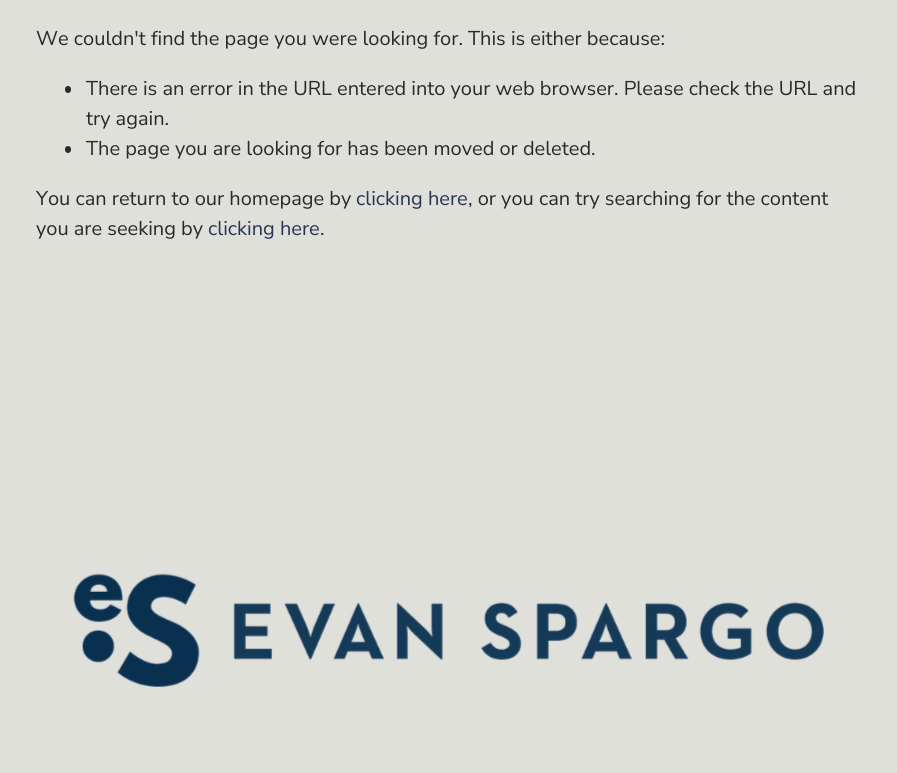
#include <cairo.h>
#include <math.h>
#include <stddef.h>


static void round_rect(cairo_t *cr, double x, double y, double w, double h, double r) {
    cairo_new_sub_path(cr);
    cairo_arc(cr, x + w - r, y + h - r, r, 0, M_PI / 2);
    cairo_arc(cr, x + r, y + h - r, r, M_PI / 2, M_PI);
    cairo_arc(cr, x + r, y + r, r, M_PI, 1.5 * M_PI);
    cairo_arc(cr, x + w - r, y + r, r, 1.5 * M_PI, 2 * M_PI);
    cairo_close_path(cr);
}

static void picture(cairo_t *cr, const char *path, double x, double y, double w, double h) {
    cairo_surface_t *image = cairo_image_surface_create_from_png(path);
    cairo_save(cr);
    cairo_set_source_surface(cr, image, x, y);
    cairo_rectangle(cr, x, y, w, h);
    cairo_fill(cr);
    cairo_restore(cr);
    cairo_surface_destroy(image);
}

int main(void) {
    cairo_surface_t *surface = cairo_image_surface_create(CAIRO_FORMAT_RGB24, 897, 773);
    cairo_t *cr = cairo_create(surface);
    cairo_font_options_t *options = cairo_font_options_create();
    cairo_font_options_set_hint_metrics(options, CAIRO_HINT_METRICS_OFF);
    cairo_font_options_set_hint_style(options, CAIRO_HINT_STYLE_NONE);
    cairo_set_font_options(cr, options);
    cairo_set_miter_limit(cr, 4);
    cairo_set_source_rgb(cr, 0.878, 0.878, 0.859);
    cairo_paint(cr);
    cairo_select_font_face(cr, "Nunito Sans", CAIRO_FONT_SLANT_NORMAL, CAIRO_FONT_WEIGHT_NORMAL);
    cairo_set_font_size(cr, 20);
    cairo_set_source_rgb(cr, 0.165, 0.157, 0.161);
    cairo_move_to(cr, 36, 45);
    cairo_show_text(cr, "We couldn't find the page you were looking for. This is either because:");
    round_rect(cr, 65, 86, 6, 7, 3);
    cairo_fill(cr);
    cairo_move_to(cr, 86, 95);
    cairo_show_text(cr, "There is an error in the URL entered into your web browser. Please check the URL and");
    cairo_move_to(cr, 86, 125);
    cairo_show_text(cr, "try again.");
    round_rect(cr, 65, 146, 6, 7, 3);
    cairo_fill(cr);
    cairo_move_to(cr, 86, 155);
    cairo_show_text(cr, "The page you are looking for has been moved or deleted.");
    cairo_move_to(cr, 36, 205);
    cairo_show_text(cr, "You can return to our homepage by");
    cairo_set_source_rgb(cr, 0.145, 0.208, 0.318);
    cairo_move_to(cr, 356, 205);
    cairo_show_text(cr, "clicking here");
    cairo_set_source_rgb(cr, 0.165, 0.157, 0.161);
    cairo_move_to(cr, 468, 205);
    cairo_show_text(cr, ", or you can try searching for the content");
    cairo_move_to(cr, 36, 235);
    cairo_show_text(cr, "you are seeking by");
    cairo_set_source_rgb(cr, 0.145, 0.208, 0.318);
    cairo_move_to(cr, 208, 235);
    cairo_show_text(cr, "clicking here");
    cairo_set_source_rgb(cr, 0.165, 0.157, 0.161);
    cairo_move_to(cr, 320, 235);
    cairo_show_text(cr, ".");
    picture(cr, "img1.png", 73, 573, 751, 114);
    cairo_surface_write_to_png(surface, "page.png");
    cairo_font_options_destroy(options);
    cairo_destroy(cr);
    cairo_surface_destroy(surface);
    return 0;
}
